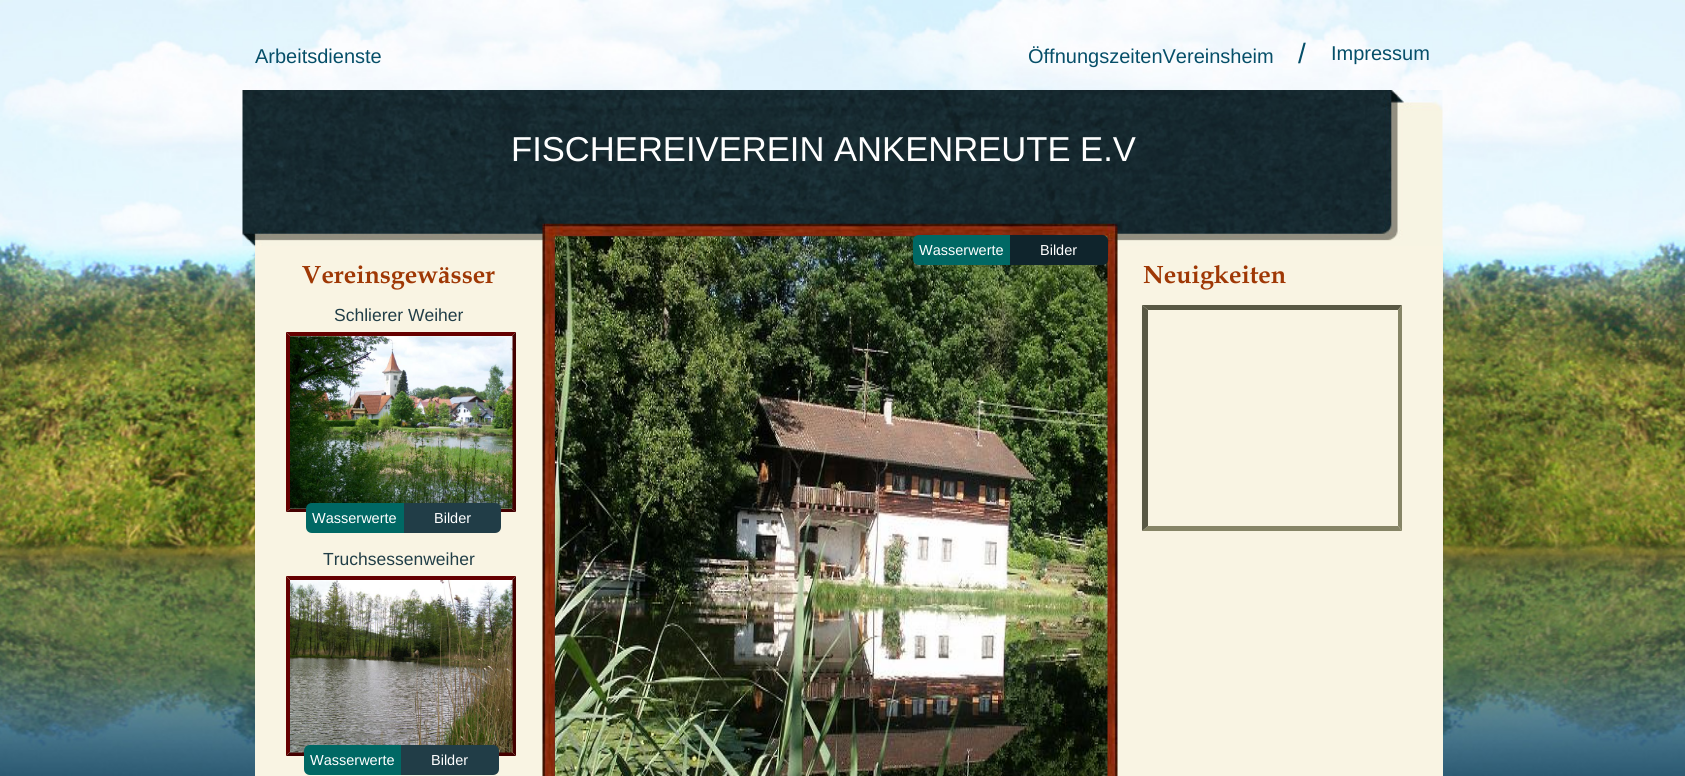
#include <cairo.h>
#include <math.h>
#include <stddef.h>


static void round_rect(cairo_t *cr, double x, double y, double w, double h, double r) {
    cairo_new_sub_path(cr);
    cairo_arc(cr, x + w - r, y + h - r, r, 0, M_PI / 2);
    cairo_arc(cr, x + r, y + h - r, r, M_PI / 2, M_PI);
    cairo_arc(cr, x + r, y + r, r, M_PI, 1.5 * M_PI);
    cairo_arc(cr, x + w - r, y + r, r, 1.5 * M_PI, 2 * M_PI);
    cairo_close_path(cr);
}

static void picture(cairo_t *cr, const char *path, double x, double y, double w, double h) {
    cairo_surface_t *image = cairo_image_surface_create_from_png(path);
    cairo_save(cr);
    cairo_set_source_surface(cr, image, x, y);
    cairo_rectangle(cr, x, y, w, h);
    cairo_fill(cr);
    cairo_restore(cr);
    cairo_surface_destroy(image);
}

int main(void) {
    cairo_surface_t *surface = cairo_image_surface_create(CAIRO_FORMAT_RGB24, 1685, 776);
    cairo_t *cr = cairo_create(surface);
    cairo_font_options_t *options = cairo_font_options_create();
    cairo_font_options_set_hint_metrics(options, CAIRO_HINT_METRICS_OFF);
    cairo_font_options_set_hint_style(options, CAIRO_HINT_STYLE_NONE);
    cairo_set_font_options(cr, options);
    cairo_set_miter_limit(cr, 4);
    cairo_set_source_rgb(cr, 1, 1, 1);
    cairo_paint(cr);
    picture(cr, "img1.png", 0, 0, 1685, 776);
    cairo_set_source_rgb(cr, 0.973, 0.957, 0.89);
    round_rect(cr, 255, 241, 1188, 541, 6);
    cairo_fill(cr);
    picture(cr, "img2.png", 242, 90, 1201, 157);
    cairo_select_font_face(cr, "Liberation Sans", CAIRO_FONT_SLANT_NORMAL, CAIRO_FONT_WEIGHT_NORMAL);
    cairo_set_font_size(cr, 20);
    cairo_set_source_rgb(cr, 0.027, 0.31, 0.412);
    cairo_move_to(cr, 255, 63);
    cairo_show_text(cr, "Arbeitsdienste");
    cairo_move_to(cr, 1028, 63);
    cairo_show_text(cr, "ÖffnungszeitenVereinsheim");
    cairo_set_font_size(cr, 28);
    cairo_move_to(cr, 1298, 63);
    cairo_show_text(cr, "/");
    cairo_set_font_size(cr, 20);
    cairo_move_to(cr, 1331, 60);
    cairo_show_text(cr, "Impressum");
    cairo_set_font_size(cr, 34.6);
    cairo_set_source_rgb(cr, 1, 1, 1);
    cairo_move_to(cr, 511, 161);
    cairo_show_text(cr, "FISCHEREIVEREIN ANKENREUTE E.V");
    picture(cr, "img3.png", 542, 223, 576, 553);
    picture(cr, "img4.png", 555, 236, 553, 540);
    cairo_set_source_rgb(cr, 0, 0.408, 0.392);
    cairo_new_path(cr);
    cairo_move_to(cr, 919, 235);
    cairo_line_to(cr, 1010, 235);
    cairo_line_to(cr, 1010, 265);
    cairo_line_to(cr, 919, 265);
    cairo_curve_to(cr, 915.5, 265, 913, 262.5, 913, 259);
    cairo_line_to(cr, 913, 241);
    cairo_curve_to(cr, 913, 237.5, 915.5, 235, 919, 235);
    cairo_close_path(cr);
    cairo_fill(cr);
    cairo_set_font_size(cr, 14.5);
    cairo_set_source_rgb(cr, 1, 1, 1);
    cairo_move_to(cr, 919, 255);
    cairo_show_text(cr, "Wasserwerte");
    cairo_set_source_rgb(cr, 0.059, 0.141, 0.173);
    cairo_new_path(cr);
    cairo_move_to(cr, 1010, 235);
    cairo_line_to(cr, 1102, 235);
    cairo_curve_to(cr, 1105.5, 235, 1108, 237.5, 1108, 241);
    cairo_line_to(cr, 1108, 259);
    cairo_curve_to(cr, 1108, 262.5, 1105.5, 265, 1102, 265);
    cairo_line_to(cr, 1010, 265);
    cairo_close_path(cr);
    cairo_fill(cr);
    cairo_set_source_rgb(cr, 1, 1, 1);
    cairo_move_to(cr, 1040, 255);
    cairo_show_text(cr, "Bilder");
    cairo_select_font_face(cr, "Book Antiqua", CAIRO_FONT_SLANT_NORMAL, CAIRO_FONT_WEIGHT_BOLD);
    cairo_set_font_size(cr, 25);
    cairo_set_source_rgb(cr, 0.624, 0.22, 0.02);
    cairo_move_to(cr, 302, 283);
    cairo_show_text(cr, "Vereinsgewässer");
    cairo_select_font_face(cr, "Liberation Sans", CAIRO_FONT_SLANT_NORMAL, CAIRO_FONT_WEIGHT_NORMAL);
    cairo_set_font_size(cr, 17.5);
    cairo_set_source_rgb(cr, 0.129, 0.243, 0.278);
    cairo_move_to(cr, 334, 321);
    cairo_show_text(cr, "Schlierer Weiher");
    cairo_set_source_rgb(cr, 0.4, 0, 0);
    cairo_new_path(cr);
    cairo_move_to(cr, 286, 332);
    cairo_line_to(cr, 516, 332);
    cairo_line_to(cr, 512, 336);
    cairo_line_to(cr, 290, 336);
    cairo_close_path(cr);
    cairo_fill(cr);
    cairo_set_source_rgb(cr, 0.267, 0, 0);
    cairo_new_path(cr);
    cairo_move_to(cr, 516, 332);
    cairo_line_to(cr, 516, 512);
    cairo_line_to(cr, 512, 509);
    cairo_line_to(cr, 512, 336);
    cairo_close_path(cr);
    cairo_fill(cr);
    cairo_new_path(cr);
    cairo_move_to(cr, 516, 512);
    cairo_line_to(cr, 286, 512);
    cairo_line_to(cr, 290, 509);
    cairo_line_to(cr, 512, 509);
    cairo_close_path(cr);
    cairo_fill(cr);
    cairo_set_source_rgb(cr, 0.4, 0, 0);
    cairo_new_path(cr);
    cairo_move_to(cr, 286, 512);
    cairo_line_to(cr, 286, 332);
    cairo_line_to(cr, 290, 336);
    cairo_line_to(cr, 290, 509);
    cairo_close_path(cr);
    cairo_fill(cr);
    picture(cr, "img5.png", 290, 336, 223, 173);
    cairo_set_source_rgb(cr, 0, 0.408, 0.392);
    cairo_new_path(cr);
    cairo_move_to(cr, 312, 503);
    cairo_line_to(cr, 404, 503);
    cairo_line_to(cr, 404, 533);
    cairo_line_to(cr, 312, 533);
    cairo_curve_to(cr, 308.5, 533, 306, 530.5, 306, 527);
    cairo_line_to(cr, 306, 509);
    cairo_curve_to(cr, 306, 505.5, 308.5, 503, 312, 503);
    cairo_close_path(cr);
    cairo_fill(cr);
    cairo_set_font_size(cr, 14.5);
    cairo_set_source_rgb(cr, 1, 1, 1);
    cairo_move_to(cr, 312, 523);
    cairo_show_text(cr, "Wasserwerte");
    cairo_set_source_rgb(cr, 0.129, 0.239, 0.278);
    cairo_new_path(cr);
    cairo_move_to(cr, 404, 503);
    cairo_line_to(cr, 495, 503);
    cairo_curve_to(cr, 498.5, 503, 501, 505.5, 501, 509);
    cairo_line_to(cr, 501, 527);
    cairo_curve_to(cr, 501, 530.5, 498.5, 533, 495, 533);
    cairo_line_to(cr, 404, 533);
    cairo_close_path(cr);
    cairo_fill(cr);
    cairo_set_source_rgb(cr, 1, 1, 1);
    cairo_move_to(cr, 434, 523);
    cairo_show_text(cr, "Bilder");
    cairo_set_font_size(cr, 17.5);
    cairo_set_source_rgb(cr, 0.129, 0.243, 0.278);
    cairo_move_to(cr, 323, 565);
    cairo_show_text(cr, "Truchsessenweiher");
    cairo_set_source_rgb(cr, 0.4, 0, 0);
    cairo_new_path(cr);
    cairo_move_to(cr, 286, 576);
    cairo_line_to(cr, 516, 576);
    cairo_line_to(cr, 512, 580);
    cairo_line_to(cr, 290, 580);
    cairo_close_path(cr);
    cairo_fill(cr);
    cairo_set_source_rgb(cr, 0.267, 0, 0);
    cairo_new_path(cr);
    cairo_move_to(cr, 516, 576);
    cairo_line_to(cr, 516, 756);
    cairo_line_to(cr, 512, 752);
    cairo_line_to(cr, 512, 580);
    cairo_close_path(cr);
    cairo_fill(cr);
    cairo_new_path(cr);
    cairo_move_to(cr, 516, 756);
    cairo_line_to(cr, 286, 756);
    cairo_line_to(cr, 290, 752);
    cairo_line_to(cr, 512, 752);
    cairo_close_path(cr);
    cairo_fill(cr);
    cairo_set_source_rgb(cr, 0.4, 0, 0);
    cairo_new_path(cr);
    cairo_move_to(cr, 286, 756);
    cairo_line_to(cr, 286, 576);
    cairo_line_to(cr, 290, 580);
    cairo_line_to(cr, 290, 752);
    cairo_close_path(cr);
    cairo_fill(cr);
    picture(cr, "img6.png", 290, 580, 223, 173);
    cairo_set_source_rgb(cr, 0, 0.408, 0.392);
    cairo_new_path(cr);
    cairo_move_to(cr, 310, 745);
    cairo_line_to(cr, 401, 745);
    cairo_line_to(cr, 401, 775);
    cairo_line_to(cr, 310, 775);
    cairo_curve_to(cr, 306.5, 775, 304, 772.5, 304, 769);
    cairo_line_to(cr, 304, 751);
    cairo_curve_to(cr, 304, 747.5, 306.5, 745, 310, 745);
    cairo_close_path(cr);
    cairo_fill(cr);
    cairo_set_font_size(cr, 14.5);
    cairo_set_source_rgb(cr, 1, 1, 1);
    cairo_move_to(cr, 310, 765);
    cairo_show_text(cr, "Wasserwerte");
    cairo_set_source_rgb(cr, 0.129, 0.239, 0.278);
    cairo_new_path(cr);
    cairo_move_to(cr, 401, 745);
    cairo_line_to(cr, 493, 745);
    cairo_curve_to(cr, 496.5, 745, 499, 747.5, 499, 751);
    cairo_line_to(cr, 499, 769);
    cairo_curve_to(cr, 499, 772.5, 496.5, 775, 493, 775);
    cairo_line_to(cr, 401, 775);
    cairo_close_path(cr);
    cairo_fill(cr);
    cairo_set_source_rgb(cr, 1, 1, 1);
    cairo_move_to(cr, 431, 765);
    cairo_show_text(cr, "Bilder");
    cairo_select_font_face(cr, "Book Antiqua", CAIRO_FONT_SLANT_NORMAL, CAIRO_FONT_WEIGHT_BOLD);
    cairo_set_font_size(cr, 25);
    cairo_set_source_rgb(cr, 0.624, 0.22, 0.02);
    cairo_move_to(cr, 1143, 283);
    cairo_show_text(cr, "Neuigkeiten");
    cairo_set_source_rgb(cr, 0.349, 0.345, 0.267);
    cairo_new_path(cr);
    cairo_move_to(cr, 1142, 305);
    cairo_line_to(cr, 1402, 305);
    cairo_line_to(cr, 1398, 310);
    cairo_line_to(cr, 1148, 310);
    cairo_close_path(cr);
    cairo_fill(cr);
    cairo_set_source_rgb(cr, 0.525, 0.518, 0.4);
    cairo_new_path(cr);
    cairo_move_to(cr, 1402, 305);
    cairo_line_to(cr, 1402, 531);
    cairo_line_to(cr, 1398, 526);
    cairo_line_to(cr, 1398, 310);
    cairo_close_path(cr);
    cairo_fill(cr);
    cairo_new_path(cr);
    cairo_move_to(cr, 1402, 531);
    cairo_line_to(cr, 1142, 531);
    cairo_line_to(cr, 1148, 526);
    cairo_line_to(cr, 1398, 526);
    cairo_close_path(cr);
    cairo_fill(cr);
    cairo_set_source_rgb(cr, 0.349, 0.345, 0.267);
    cairo_new_path(cr);
    cairo_move_to(cr, 1142, 531);
    cairo_line_to(cr, 1142, 305);
    cairo_line_to(cr, 1148, 310);
    cairo_line_to(cr, 1148, 526);
    cairo_close_path(cr);
    cairo_fill(cr);
    cairo_surface_write_to_png(surface, "page.png");
    cairo_font_options_destroy(options);
    cairo_destroy(cr);
    cairo_surface_destroy(surface);
    return 0;
}
